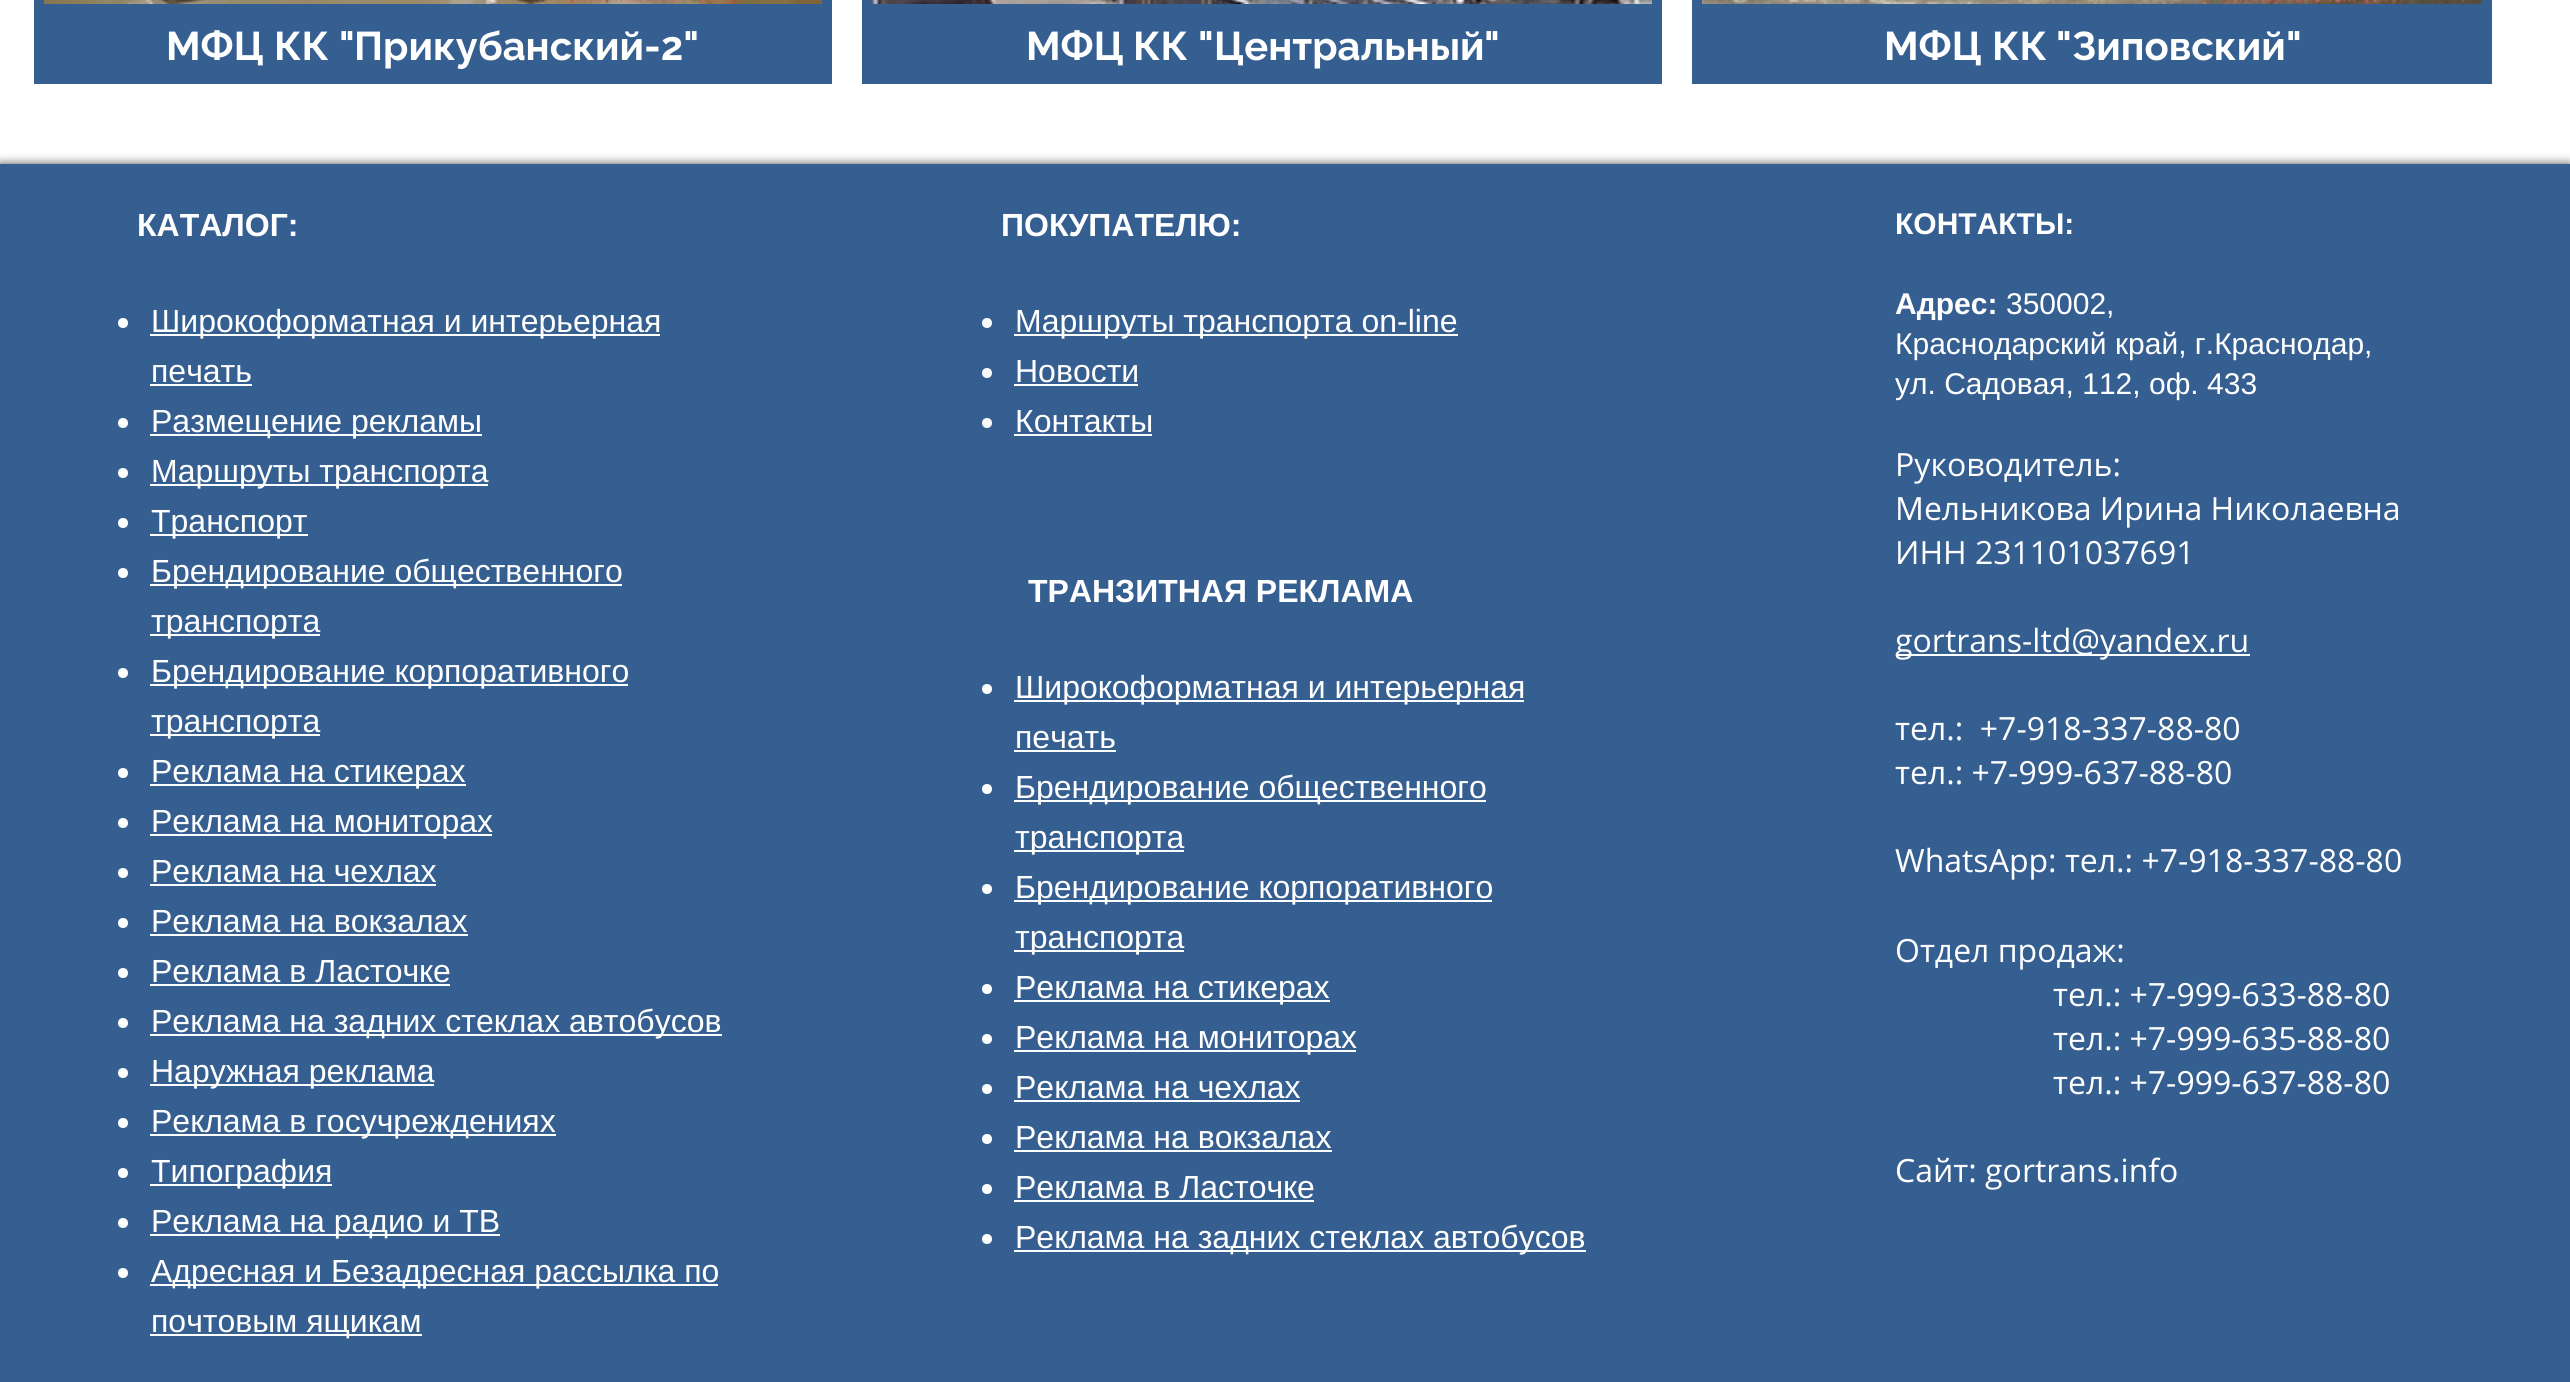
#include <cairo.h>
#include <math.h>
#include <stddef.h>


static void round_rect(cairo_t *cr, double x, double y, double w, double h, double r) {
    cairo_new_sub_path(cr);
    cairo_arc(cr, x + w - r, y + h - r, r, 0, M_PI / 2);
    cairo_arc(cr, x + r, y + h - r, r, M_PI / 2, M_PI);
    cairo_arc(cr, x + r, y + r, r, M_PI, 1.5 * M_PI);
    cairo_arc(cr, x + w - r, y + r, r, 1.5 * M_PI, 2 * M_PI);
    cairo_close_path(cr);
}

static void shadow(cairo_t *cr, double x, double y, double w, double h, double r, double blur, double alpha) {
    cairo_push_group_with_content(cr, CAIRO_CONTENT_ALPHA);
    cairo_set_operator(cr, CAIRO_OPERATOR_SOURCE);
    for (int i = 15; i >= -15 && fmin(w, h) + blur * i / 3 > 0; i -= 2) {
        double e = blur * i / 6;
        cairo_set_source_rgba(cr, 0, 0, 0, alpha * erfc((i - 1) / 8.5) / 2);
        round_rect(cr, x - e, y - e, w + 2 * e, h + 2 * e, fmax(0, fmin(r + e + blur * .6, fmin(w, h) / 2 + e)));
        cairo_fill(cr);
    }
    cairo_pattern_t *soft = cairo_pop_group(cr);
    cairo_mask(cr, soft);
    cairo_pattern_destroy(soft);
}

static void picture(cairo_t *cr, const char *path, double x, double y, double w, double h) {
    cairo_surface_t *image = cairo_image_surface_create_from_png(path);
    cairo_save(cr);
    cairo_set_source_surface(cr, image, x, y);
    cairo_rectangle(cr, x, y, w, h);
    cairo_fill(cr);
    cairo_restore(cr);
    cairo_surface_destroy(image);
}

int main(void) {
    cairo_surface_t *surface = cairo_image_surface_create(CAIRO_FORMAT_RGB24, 2570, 1382);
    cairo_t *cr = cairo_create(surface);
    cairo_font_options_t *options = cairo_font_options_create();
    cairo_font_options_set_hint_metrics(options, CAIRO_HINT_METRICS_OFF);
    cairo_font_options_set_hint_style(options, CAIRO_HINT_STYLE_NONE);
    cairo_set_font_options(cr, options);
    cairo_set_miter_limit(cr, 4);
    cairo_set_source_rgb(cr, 1, 1, 1);
    cairo_paint(cr);
    cairo_set_source_rgb(cr, 0.212, 0.373, 0.569);
    cairo_rectangle(cr, 34, 0, 798, 84);
    cairo_fill(cr);
    picture(cr, "img1.png", 44, 0, 778, 4);
    cairo_select_font_face(cr, "Raleway", CAIRO_FONT_SLANT_NORMAL, CAIRO_FONT_WEIGHT_BOLD);
    cairo_set_font_size(cr, 40);
    cairo_set_source_rgb(cr, 1, 1, 1);
    cairo_move_to(cr, 166, 60);
    cairo_show_text(cr, "МФЦ");
    cairo_move_to(cr, 274, 60);
    cairo_show_text(cr, "КК");
    cairo_select_font_face(cr, "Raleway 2", CAIRO_FONT_SLANT_NORMAL, CAIRO_FONT_WEIGHT_BOLD);
    cairo_move_to(cr, 339, 60);
    cairo_show_text(cr, "\"");
    cairo_select_font_face(cr, "Raleway", CAIRO_FONT_SLANT_NORMAL, CAIRO_FONT_WEIGHT_BOLD);
    cairo_move_to(cr, 354, 60);
    cairo_show_text(cr, "Прикубанский");
    cairo_select_font_face(cr, "Raleway 2", CAIRO_FONT_SLANT_NORMAL, CAIRO_FONT_WEIGHT_BOLD);
    cairo_move_to(cr, 644, 60);
    cairo_show_text(cr, "-2\"");
    cairo_set_source_rgb(cr, 0.212, 0.373, 0.569);
    cairo_rectangle(cr, 862, 0, 800, 84);
    cairo_fill(cr);
    picture(cr, "img2.png", 872, 0, 780, 4);
    cairo_select_font_face(cr, "Raleway", CAIRO_FONT_SLANT_NORMAL, CAIRO_FONT_WEIGHT_BOLD);
    cairo_set_source_rgb(cr, 1, 1, 1);
    cairo_move_to(cr, 1026, 60);
    cairo_show_text(cr, "МФЦ");
    cairo_move_to(cr, 1133, 60);
    cairo_show_text(cr, "КК");
    cairo_select_font_face(cr, "Raleway 2", CAIRO_FONT_SLANT_NORMAL, CAIRO_FONT_WEIGHT_BOLD);
    cairo_move_to(cr, 1198, 60);
    cairo_show_text(cr, "\"");
    cairo_select_font_face(cr, "Raleway", CAIRO_FONT_SLANT_NORMAL, CAIRO_FONT_WEIGHT_BOLD);
    cairo_move_to(cr, 1214, 60);
    cairo_show_text(cr, "Центральный");
    cairo_select_font_face(cr, "Raleway 2", CAIRO_FONT_SLANT_NORMAL, CAIRO_FONT_WEIGHT_BOLD);
    cairo_move_to(cr, 1484, 60);
    cairo_show_text(cr, "\"");
    cairo_set_source_rgb(cr, 0.212, 0.373, 0.569);
    cairo_rectangle(cr, 1692, 0, 800, 84);
    cairo_fill(cr);
    picture(cr, "img3.png", 1702, 0, 780, 4);
    cairo_select_font_face(cr, "Raleway", CAIRO_FONT_SLANT_NORMAL, CAIRO_FONT_WEIGHT_BOLD);
    cairo_set_source_rgb(cr, 1, 1, 1);
    cairo_move_to(cr, 1884, 60);
    cairo_show_text(cr, "МФЦ");
    cairo_move_to(cr, 1992, 60);
    cairo_show_text(cr, "КК");
    cairo_select_font_face(cr, "Raleway 2", CAIRO_FONT_SLANT_NORMAL, CAIRO_FONT_WEIGHT_BOLD);
    cairo_move_to(cr, 2056, 60);
    cairo_show_text(cr, "\"");
    cairo_select_font_face(cr, "Raleway", CAIRO_FONT_SLANT_NORMAL, CAIRO_FONT_WEIGHT_BOLD);
    cairo_move_to(cr, 2072, 60);
    cairo_show_text(cr, "Зиповский");
    cairo_select_font_face(cr, "Raleway 2", CAIRO_FONT_SLANT_NORMAL, CAIRO_FONT_WEIGHT_BOLD);
    cairo_move_to(cr, 2286, 60);
    cairo_show_text(cr, "\"");
    cairo_set_source_rgb(cr, 0, 0, 0);
    shadow(cr, 0, 164, 2570, 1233, 0, 5, 0.7);
    cairo_set_source_rgb(cr, 0.212, 0.373, 0.569);
    cairo_rectangle(cr, 0, 164, 2570, 1218);
    cairo_fill(cr);
    cairo_select_font_face(cr, "Liberation Sans", CAIRO_FONT_SLANT_NORMAL, CAIRO_FONT_WEIGHT_BOLD);
    cairo_set_font_size(cr, 32);
    cairo_set_source_rgb(cr, 1, 1, 1);
    cairo_move_to(cr, 137, 236);
    cairo_show_text(cr, "КАТАЛОГ:");
    cairo_new_path(cr);
    cairo_arc(cr, 123, 323, 5, 0, 2 * M_PI);
    cairo_fill(cr);
    cairo_rectangle(cr, 150, 334, 510, 2);
    cairo_fill(cr);
    cairo_select_font_face(cr, "Liberation Sans", CAIRO_FONT_SLANT_NORMAL, CAIRO_FONT_WEIGHT_NORMAL);
    cairo_move_to(cr, 151, 332);
    cairo_show_text(cr, "Широкоформатная и интерьерная");
    cairo_move_to(cr, 151, 382);
    cairo_show_text(cr, "печать");
    cairo_rectangle(cr, 150, 384, 102, 2);
    cairo_fill(cr);
    cairo_arc(cr, 123, 423, 5, 0, 2 * M_PI);
    cairo_fill(cr);
    cairo_rectangle(cr, 150, 434, 332, 2);
    cairo_fill(cr);
    cairo_move_to(cr, 151, 432);
    cairo_show_text(cr, "Размещение рекламы");
    cairo_new_path(cr);
    cairo_arc(cr, 123, 473, 5, 0, 2 * M_PI);
    cairo_fill(cr);
    cairo_rectangle(cr, 150, 484, 338, 2);
    cairo_fill(cr);
    cairo_move_to(cr, 151, 482);
    cairo_show_text(cr, "Маршруты транспорта");
    cairo_new_path(cr);
    cairo_arc(cr, 123, 523, 5, 0, 2 * M_PI);
    cairo_fill(cr);
    cairo_rectangle(cr, 150, 534, 158, 2);
    cairo_fill(cr);
    cairo_move_to(cr, 151, 532);
    cairo_show_text(cr, "Транспорт");
    cairo_new_path(cr);
    cairo_arc(cr, 123, 573, 5, 0, 2 * M_PI);
    cairo_fill(cr);
    cairo_rectangle(cr, 150, 584, 472, 2);
    cairo_fill(cr);
    cairo_move_to(cr, 151, 582);
    cairo_show_text(cr, "Брендирование общественного");
    cairo_rectangle(cr, 150, 634, 170, 2);
    cairo_fill(cr);
    cairo_move_to(cr, 151, 632);
    cairo_show_text(cr, "транспорта");
    cairo_new_path(cr);
    cairo_arc(cr, 123, 673, 5, 0, 2 * M_PI);
    cairo_fill(cr);
    cairo_rectangle(cr, 150, 684, 478, 2);
    cairo_fill(cr);
    cairo_move_to(cr, 151, 682);
    cairo_show_text(cr, "Брендирование корпоративного");
    cairo_rectangle(cr, 150, 734, 170, 2);
    cairo_fill(cr);
    cairo_move_to(cr, 151, 732);
    cairo_show_text(cr, "транспорта");
    cairo_new_path(cr);
    cairo_arc(cr, 123, 773, 5, 0, 2 * M_PI);
    cairo_fill(cr);
    cairo_rectangle(cr, 150, 784, 316, 2);
    cairo_fill(cr);
    cairo_move_to(cr, 151, 782);
    cairo_show_text(cr, "Реклама на стикерах");
    cairo_new_path(cr);
    cairo_arc(cr, 123, 823, 5, 0, 2 * M_PI);
    cairo_fill(cr);
    cairo_rectangle(cr, 150, 834, 342, 2);
    cairo_fill(cr);
    cairo_move_to(cr, 151, 832);
    cairo_show_text(cr, "Реклама на мониторах");
    cairo_new_path(cr);
    cairo_arc(cr, 123, 873, 5, 0, 2 * M_PI);
    cairo_fill(cr);
    cairo_move_to(cr, 151, 882);
    cairo_show_text(cr, "Реклама на чехлах");
    cairo_rectangle(cr, 150, 884, 286, 2);
    cairo_fill(cr);
    cairo_arc(cr, 123, 923, 5, 0, 2 * M_PI);
    cairo_fill(cr);
    cairo_move_to(cr, 151, 932);
    cairo_show_text(cr, "Реклама на вокзалах");
    cairo_rectangle(cr, 150, 934, 318, 2);
    cairo_fill(cr);
    cairo_arc(cr, 123, 973, 5, 0, 2 * M_PI);
    cairo_fill(cr);
    cairo_move_to(cr, 151, 982);
    cairo_show_text(cr, "Реклама в Ласточке");
    cairo_rectangle(cr, 150, 984, 300, 2);
    cairo_fill(cr);
    cairo_arc(cr, 123, 1023, 5, 0, 2 * M_PI);
    cairo_fill(cr);
    cairo_rectangle(cr, 150, 1034, 572, 2);
    cairo_fill(cr);
    cairo_move_to(cr, 151, 1032);
    cairo_show_text(cr, "Реклама на задних стеклах автобусов");
    cairo_new_path(cr);
    cairo_arc(cr, 123, 1073, 5, 0, 2 * M_PI);
    cairo_fill(cr);
    cairo_rectangle(cr, 150, 1084, 284, 2);
    cairo_fill(cr);
    cairo_move_to(cr, 151, 1082);
    cairo_show_text(cr, "Наружная реклама");
    cairo_new_path(cr);
    cairo_arc(cr, 123, 1123, 5, 0, 2 * M_PI);
    cairo_fill(cr);
    cairo_rectangle(cr, 150, 1134, 406, 2);
    cairo_fill(cr);
    cairo_move_to(cr, 151, 1132);
    cairo_show_text(cr, "Реклама в госучреждениях");
    cairo_new_path(cr);
    cairo_arc(cr, 123, 1173, 5, 0, 2 * M_PI);
    cairo_fill(cr);
    cairo_rectangle(cr, 150, 1184, 182, 2);
    cairo_fill(cr);
    cairo_move_to(cr, 151, 1182);
    cairo_show_text(cr, "Типография");
    cairo_new_path(cr);
    cairo_arc(cr, 123, 1223, 5, 0, 2 * M_PI);
    cairo_fill(cr);
    cairo_rectangle(cr, 150, 1234, 350, 2);
    cairo_fill(cr);
    cairo_move_to(cr, 151, 1232);
    cairo_show_text(cr, "Реклама на радио и ТВ");
    cairo_new_path(cr);
    cairo_arc(cr, 123, 1273, 5, 0, 2 * M_PI);
    cairo_fill(cr);
    cairo_rectangle(cr, 150, 1284, 568, 2);
    cairo_fill(cr);
    cairo_move_to(cr, 151, 1282);
    cairo_show_text(cr, "Адресная и Безадресная рассылка по");
    cairo_rectangle(cr, 150, 1334, 272, 2);
    cairo_fill(cr);
    cairo_move_to(cr, 151, 1332);
    cairo_show_text(cr, "почтовым ящикам");
    cairo_select_font_face(cr, "Liberation Sans", CAIRO_FONT_SLANT_NORMAL, CAIRO_FONT_WEIGHT_BOLD);
    cairo_move_to(cr, 1001, 236);
    cairo_show_text(cr, "ПОКУПАТЕЛЮ:");
    cairo_set_source_rgb(cr, 0.98, 0.98, 0.98);
    cairo_new_path(cr);
    cairo_arc(cr, 987, 323, 5, 0, 2 * M_PI);
    cairo_fill(cr);
    cairo_rectangle(cr, 1014, 334, 444, 2);
    cairo_fill(cr);
    cairo_select_font_face(cr, "Liberation Sans", CAIRO_FONT_SLANT_NORMAL, CAIRO_FONT_WEIGHT_NORMAL);
    cairo_set_source_rgb(cr, 1, 1, 1);
    cairo_move_to(cr, 1015, 332);
    cairo_show_text(cr, "Маршруты транспорта on-line");
    cairo_set_source_rgb(cr, 0.98, 0.98, 0.98);
    cairo_new_path(cr);
    cairo_arc(cr, 987, 373, 5, 0, 2 * M_PI);
    cairo_fill(cr);
    cairo_set_source_rgb(cr, 1, 1, 1);
    cairo_move_to(cr, 1015, 382);
    cairo_show_text(cr, "Новости");
    cairo_rectangle(cr, 1014, 384, 124, 2);
    cairo_fill(cr);
    cairo_set_source_rgb(cr, 0.98, 0.98, 0.98);
    cairo_arc(cr, 987, 423, 5, 0, 2 * M_PI);
    cairo_fill(cr);
    cairo_set_source_rgb(cr, 1, 1, 1);
    cairo_move_to(cr, 1015, 432);
    cairo_show_text(cr, "Контакты");
    cairo_set_source_rgb(cr, 0.98, 0.98, 0.98);
    cairo_rectangle(cr, 1014, 434, 138, 2);
    cairo_fill(cr);
    cairo_select_font_face(cr, "Liberation Sans", CAIRO_FONT_SLANT_NORMAL, CAIRO_FONT_WEIGHT_BOLD);
    cairo_set_font_size(cr, 30);
    cairo_set_source_rgb(cr, 1, 1, 1);
    cairo_move_to(cr, 1895, 234);
    cairo_show_text(cr, "КОНТАКТЫ:");
    cairo_move_to(cr, 1895, 314);
    cairo_show_text(cr, "Адрес:");
    cairo_select_font_face(cr, "Liberation Sans", CAIRO_FONT_SLANT_NORMAL, CAIRO_FONT_WEIGHT_NORMAL);
    cairo_move_to(cr, 2006, 314);
    cairo_show_text(cr, "350002,");
    cairo_move_to(cr, 1895, 354);
    cairo_show_text(cr, "Краснодарский край, г.Краснодар,");
    cairo_move_to(cr, 1895, 394);
    cairo_show_text(cr, "ул. Садовая, 112, оф. 433");
    cairo_select_font_face(cr, "Open Sans", CAIRO_FONT_SLANT_NORMAL, CAIRO_FONT_WEIGHT_NORMAL);
    cairo_set_font_size(cr, 32);
    cairo_move_to(cr, 1895, 476);
    cairo_show_text(cr, "Руководитель:");
    cairo_move_to(cr, 1895, 520);
    cairo_show_text(cr, "Мельникова Ирина Николаевна");
    cairo_move_to(cr, 1895, 564);
    cairo_show_text(cr, "ИНН 231101037691");
    cairo_rectangle(cr, 1896, 654, 354, 2);
    cairo_fill(cr);
    cairo_move_to(cr, 1895, 652);
    cairo_show_text(cr, "gortrans-ltd@yandex.ru");
    cairo_move_to(cr, 1895, 740);
    cairo_show_text(cr, "тел.:  +7-918-337-88-80");
    cairo_move_to(cr, 1895, 784);
    cairo_show_text(cr, "тел.: +7-999-637-88-80");
    cairo_move_to(cr, 1895, 872);
    cairo_show_text(cr, "WhatsApp: тел.: +7-918-337-88-80");
    cairo_move_to(cr, 1895, 962);
    cairo_show_text(cr, "Отдел продаж:");
    cairo_move_to(cr, 2053, 1006);
    cairo_show_text(cr, "тел.: +7-999-633-88-80");
    cairo_move_to(cr, 2053, 1050);
    cairo_show_text(cr, "тел.: +7-999-635-88-80");
    cairo_move_to(cr, 2053, 1094);
    cairo_show_text(cr, "тел.: +7-999-637-88-80");
    cairo_move_to(cr, 1895, 1182);
    cairo_show_text(cr, "Сайт: gortrans.info");
    cairo_select_font_face(cr, "Liberation Sans", CAIRO_FONT_SLANT_NORMAL, CAIRO_FONT_WEIGHT_BOLD);
    cairo_move_to(cr, 1028, 602);
    cairo_show_text(cr, "ТРАНЗИТНАЯ РЕКЛАМА");
    cairo_new_path(cr);
    cairo_arc(cr, 987, 689, 5, 0, 2 * M_PI);
    cairo_fill(cr);
    cairo_rectangle(cr, 1014, 700, 510, 2);
    cairo_fill(cr);
    cairo_select_font_face(cr, "Liberation Sans", CAIRO_FONT_SLANT_NORMAL, CAIRO_FONT_WEIGHT_NORMAL);
    cairo_move_to(cr, 1015, 698);
    cairo_show_text(cr, "Широкоформатная и интерьерная");
    cairo_move_to(cr, 1015, 748);
    cairo_show_text(cr, "печать");
    cairo_rectangle(cr, 1014, 750, 102, 2);
    cairo_fill(cr);
    cairo_arc(cr, 987, 789, 5, 0, 2 * M_PI);
    cairo_fill(cr);
    cairo_rectangle(cr, 1014, 800, 472, 2);
    cairo_fill(cr);
    cairo_move_to(cr, 1015, 798);
    cairo_show_text(cr, "Брендирование общественного");
    cairo_rectangle(cr, 1014, 850, 170, 2);
    cairo_fill(cr);
    cairo_move_to(cr, 1015, 848);
    cairo_show_text(cr, "транспорта");
    cairo_new_path(cr);
    cairo_arc(cr, 987, 889, 5, 0, 2 * M_PI);
    cairo_fill(cr);
    cairo_rectangle(cr, 1014, 900, 478, 2);
    cairo_fill(cr);
    cairo_move_to(cr, 1015, 898);
    cairo_show_text(cr, "Брендирование корпоративного");
    cairo_rectangle(cr, 1014, 950, 170, 2);
    cairo_fill(cr);
    cairo_move_to(cr, 1015, 948);
    cairo_show_text(cr, "транспорта");
    cairo_new_path(cr);
    cairo_arc(cr, 987, 989, 5, 0, 2 * M_PI);
    cairo_fill(cr);
    cairo_rectangle(cr, 1014, 1000, 316, 2);
    cairo_fill(cr);
    cairo_move_to(cr, 1015, 998);
    cairo_show_text(cr, "Реклама на стикерах");
    cairo_new_path(cr);
    cairo_arc(cr, 987, 1039, 5, 0, 2 * M_PI);
    cairo_fill(cr);
    cairo_rectangle(cr, 1014, 1050, 342, 2);
    cairo_fill(cr);
    cairo_move_to(cr, 1015, 1048);
    cairo_show_text(cr, "Реклама на мониторах");
    cairo_new_path(cr);
    cairo_arc(cr, 987, 1089, 5, 0, 2 * M_PI);
    cairo_fill(cr);
    cairo_move_to(cr, 1015, 1098);
    cairo_show_text(cr, "Реклама на чехлах");
    cairo_rectangle(cr, 1014, 1100, 286, 2);
    cairo_fill(cr);
    cairo_arc(cr, 987, 1139, 5, 0, 2 * M_PI);
    cairo_fill(cr);
    cairo_move_to(cr, 1015, 1148);
    cairo_show_text(cr, "Реклама на вокзалах");
    cairo_rectangle(cr, 1014, 1150, 318, 2);
    cairo_fill(cr);
    cairo_arc(cr, 987, 1189, 5, 0, 2 * M_PI);
    cairo_fill(cr);
    cairo_move_to(cr, 1015, 1198);
    cairo_show_text(cr, "Реклама в Ласточке");
    cairo_rectangle(cr, 1014, 1200, 300, 2);
    cairo_fill(cr);
    cairo_arc(cr, 987, 1239, 5, 0, 2 * M_PI);
    cairo_fill(cr);
    cairo_rectangle(cr, 1014, 1250, 572, 2);
    cairo_fill(cr);
    cairo_move_to(cr, 1015, 1248);
    cairo_show_text(cr, "Реклама на задних стеклах автобусов");
    cairo_surface_write_to_png(surface, "page.png");
    cairo_font_options_destroy(options);
    cairo_destroy(cr);
    cairo_surface_destroy(surface);
    return 0;
}
